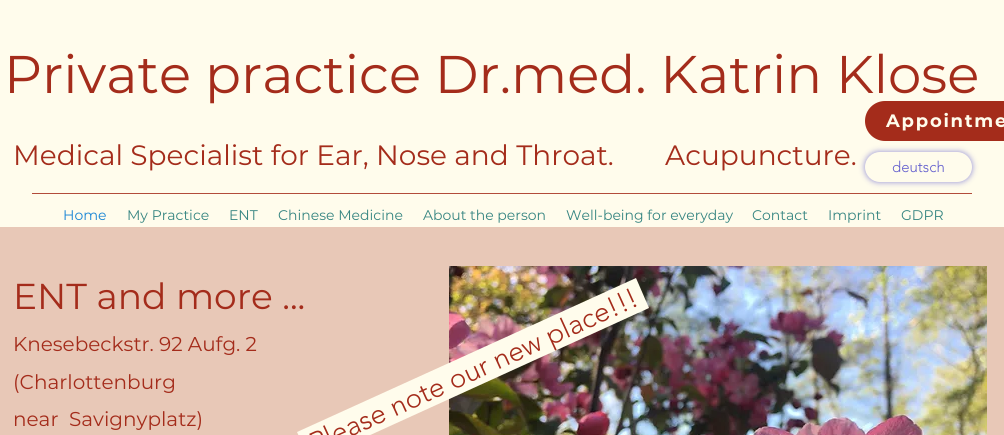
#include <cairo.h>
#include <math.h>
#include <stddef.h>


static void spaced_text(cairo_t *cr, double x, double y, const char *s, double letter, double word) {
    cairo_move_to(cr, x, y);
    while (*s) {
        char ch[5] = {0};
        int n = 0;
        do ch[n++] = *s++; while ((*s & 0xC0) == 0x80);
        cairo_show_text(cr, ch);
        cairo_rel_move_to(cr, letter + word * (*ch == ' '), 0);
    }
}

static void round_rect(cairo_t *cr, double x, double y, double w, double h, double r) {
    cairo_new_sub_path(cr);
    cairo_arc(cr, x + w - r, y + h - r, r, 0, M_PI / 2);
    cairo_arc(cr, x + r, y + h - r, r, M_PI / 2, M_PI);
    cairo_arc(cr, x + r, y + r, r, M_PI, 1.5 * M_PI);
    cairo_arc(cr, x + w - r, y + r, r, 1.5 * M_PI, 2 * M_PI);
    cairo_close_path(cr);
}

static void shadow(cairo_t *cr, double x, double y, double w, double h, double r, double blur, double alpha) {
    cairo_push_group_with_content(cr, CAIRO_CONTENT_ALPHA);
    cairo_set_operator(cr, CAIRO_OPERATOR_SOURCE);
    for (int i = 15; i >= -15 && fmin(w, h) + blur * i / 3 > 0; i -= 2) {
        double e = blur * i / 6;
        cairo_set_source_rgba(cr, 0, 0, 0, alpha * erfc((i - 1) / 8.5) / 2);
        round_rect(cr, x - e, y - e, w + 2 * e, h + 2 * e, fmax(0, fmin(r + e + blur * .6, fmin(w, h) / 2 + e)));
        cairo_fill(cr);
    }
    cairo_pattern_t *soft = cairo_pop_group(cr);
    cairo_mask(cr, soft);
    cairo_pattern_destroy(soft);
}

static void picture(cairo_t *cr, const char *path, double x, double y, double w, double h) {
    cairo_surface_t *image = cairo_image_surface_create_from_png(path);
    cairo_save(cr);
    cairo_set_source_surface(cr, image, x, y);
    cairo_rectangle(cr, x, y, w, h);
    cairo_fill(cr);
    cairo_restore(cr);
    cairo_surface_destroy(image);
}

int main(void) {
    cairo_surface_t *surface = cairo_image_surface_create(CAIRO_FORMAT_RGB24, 1004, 435);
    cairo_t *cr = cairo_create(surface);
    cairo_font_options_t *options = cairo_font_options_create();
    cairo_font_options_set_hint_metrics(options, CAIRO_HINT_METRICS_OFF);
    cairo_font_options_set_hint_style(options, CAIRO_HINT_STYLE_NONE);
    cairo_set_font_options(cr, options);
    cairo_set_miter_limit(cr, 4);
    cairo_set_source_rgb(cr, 0.91, 0.784, 0.718);
    cairo_paint(cr);
    cairo_set_source_rgb(cr, 1, 0.988, 0.922);
    cairo_rectangle(cr, 0, 0, 1004, 227);
    cairo_fill(cr);
    cairo_select_font_face(cr, "Montserrat", CAIRO_FONT_SLANT_NORMAL, CAIRO_FONT_WEIGHT_NORMAL);
    cairo_set_font_size(cr, 53);
    cairo_set_source_rgb(cr, 0.643, 0.173, 0.106);
    cairo_move_to(cr, 4, 93);
    cairo_show_text(cr, "Private practice Dr.med. Katrin Klose");
    round_rect(cr, 865, 101, 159, 40, 20);
    cairo_fill(cr);
    cairo_select_font_face(cr, "Montserrat", CAIRO_FONT_SLANT_NORMAL, CAIRO_FONT_WEIGHT_BOLD);
    cairo_set_font_size(cr, 18);
    cairo_set_source_rgb(cr, 1, 0.988, 0.922);
    spaced_text(cr, 886, 127, "Appointme", 1.75, 0);
    cairo_select_font_face(cr, "Montserrat", CAIRO_FONT_SLANT_NORMAL, CAIRO_FONT_WEIGHT_NORMAL);
    cairo_set_font_size(cr, 28);
    cairo_set_source_rgb(cr, 0.643, 0.173, 0.106);
    cairo_move_to(cr, 13, 165);
    cairo_show_text(cr, "Medical Specialist for Ear, Nose and Throat.       Acupuncture.");
    cairo_set_source_rgb(cr, 0.373, 0.357, 0.804);
    shadow(cr, 865, 152, 107, 30, 15, 3, 0.7);
    cairo_set_source_rgb(cr, 1, 0.988, 0.922);
    round_rect(cr, 865, 152, 107, 30, 15);
    cairo_fill(cr);
    cairo_select_font_face(cr, "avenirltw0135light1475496 Light", CAIRO_FONT_SLANT_NORMAL, CAIRO_FONT_WEIGHT_NORMAL);
    cairo_set_font_size(cr, 15);
    cairo_set_source_rgb(cr, 0.373, 0.357, 0.804);
    cairo_move_to(cr, 892, 172);
    cairo_show_text(cr, "deutsch");
    cairo_set_source_rgb(cr, 0.698, 0.294, 0.227);
    cairo_rectangle(cr, 32, 193, 940, 1);
    cairo_fill(cr);
    cairo_select_font_face(cr, "Montserrat", CAIRO_FONT_SLANT_NORMAL, CAIRO_FONT_WEIGHT_NORMAL);
    cairo_set_font_size(cr, 14);
    cairo_set_source_rgb(cr, 0.094, 0.522, 0.835);
    cairo_move_to(cr, 63, 220);
    cairo_show_text(cr, "Home");
    cairo_set_source_rgb(cr, 0.212, 0.522, 0.506);
    cairo_move_to(cr, 127, 220);
    cairo_show_text(cr, "My Practice");
    cairo_move_to(cr, 229, 220);
    cairo_show_text(cr, "ENT");
    cairo_move_to(cr, 278, 220);
    cairo_show_text(cr, "Chinese Medicine");
    cairo_move_to(cr, 423, 220);
    cairo_show_text(cr, "About the person");
    cairo_move_to(cr, 566, 220);
    cairo_show_text(cr, "Well-being for everyday");
    cairo_move_to(cr, 752, 220);
    cairo_show_text(cr, "Contact");
    cairo_move_to(cr, 828, 220);
    cairo_show_text(cr, "Imprint");
    cairo_move_to(cr, 901, 220);
    cairo_show_text(cr, "GDPR");
    cairo_set_font_size(cr, 36);
    cairo_set_source_rgb(cr, 0.643, 0.173, 0.106);
    cairo_move_to(cr, 13, 309);
    cairo_show_text(cr, "ENT and more ...");
    cairo_set_font_size(cr, 20);
    cairo_move_to(cr, 13, 351);
    cairo_show_text(cr, "Knesebeckstr. 92 Aufg. 2");
    cairo_move_to(cr, 13, 389);
    cairo_show_text(cr, "(Charlottenburg");
    cairo_move_to(cr, 13, 426);
    cairo_show_text(cr, "near");
    cairo_move_to(cr, 69, 426);
    cairo_show_text(cr, "Savignyplatz)");
    picture(cr, "img1.png", 449, 266, 538, 169);
    cairo_set_source_rgb(cr, 1, 0.988, 0.922);
    cairo_new_path(cr);
    cairo_move_to(cr, 297, 432);
    cairo_line_to(cr, 636, 278);
    cairo_line_to(cr, 649, 308);
    cairo_line_to(cr, 311, 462);
    cairo_close_path(cr);
    cairo_fill(cr);
    cairo_select_font_face(cr, "avenirltw0135light1475496 Light", CAIRO_FONT_SLANT_NORMAL, CAIRO_FONT_WEIGHT_NORMAL);
    cairo_set_font_size(cr, 28);
    cairo_set_source_rgb(cr, 0.643, 0.173, 0.106);
    cairo_save(cr);
    cairo_translate(cr, 315, 453);
    cairo_rotate(cr, -24.5 * M_PI / 180);
    cairo_move_to(cr, 0, 0);
    cairo_show_text(cr, "Please note our new place!!!");
    cairo_restore(cr);
    cairo_surface_write_to_png(surface, "page.png");
    cairo_font_options_destroy(options);
    cairo_destroy(cr);
    cairo_surface_destroy(surface);
    return 0;
}
